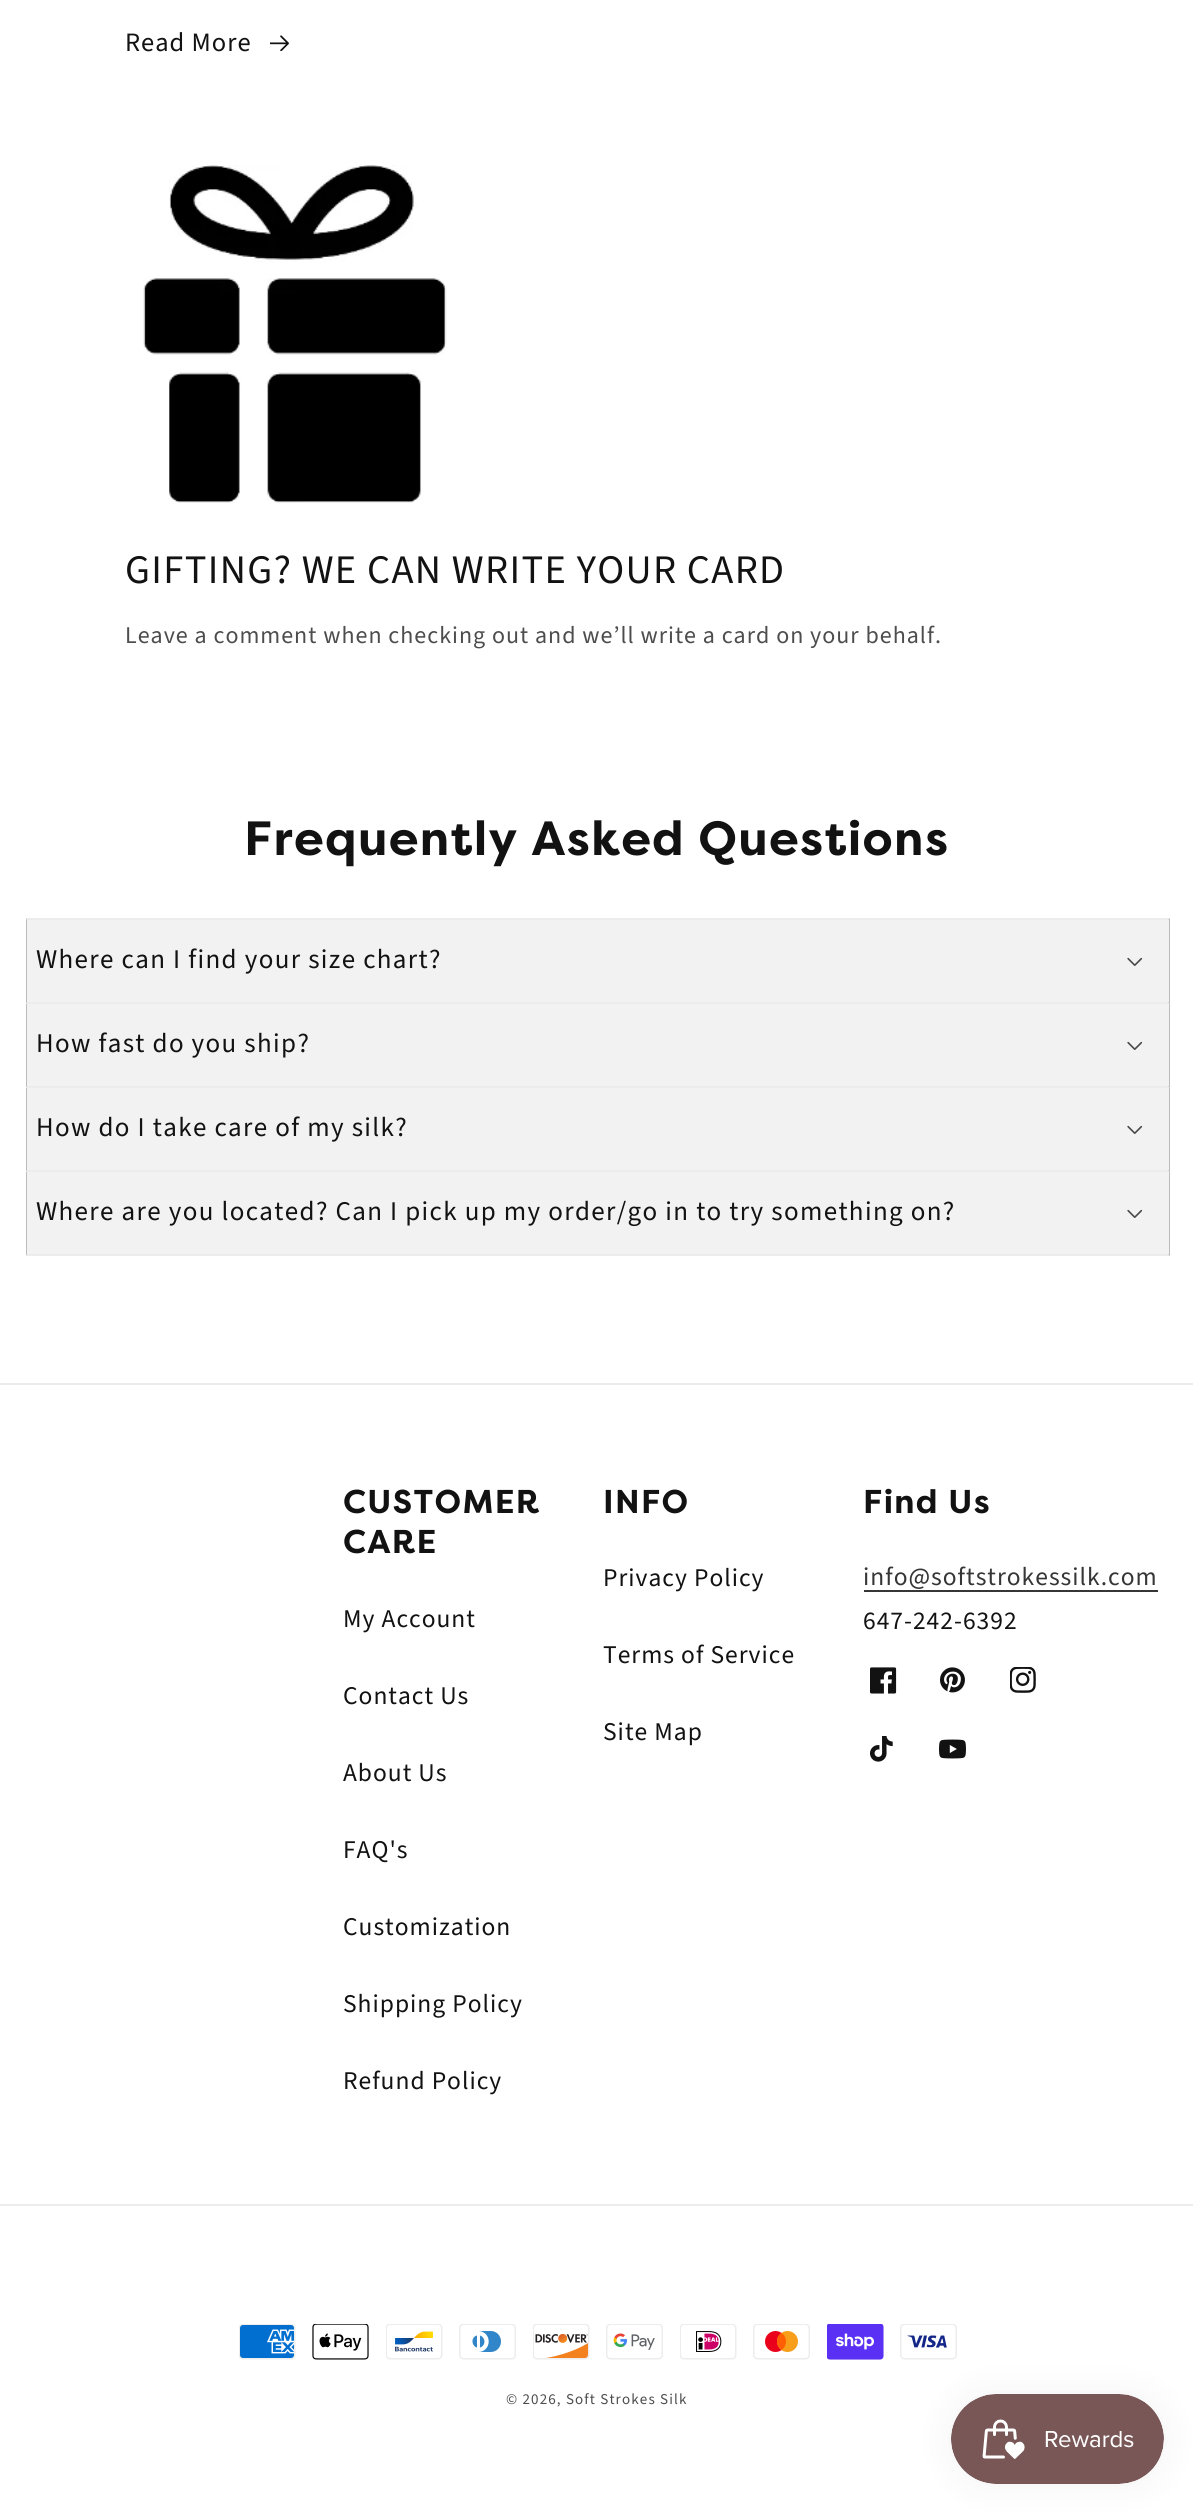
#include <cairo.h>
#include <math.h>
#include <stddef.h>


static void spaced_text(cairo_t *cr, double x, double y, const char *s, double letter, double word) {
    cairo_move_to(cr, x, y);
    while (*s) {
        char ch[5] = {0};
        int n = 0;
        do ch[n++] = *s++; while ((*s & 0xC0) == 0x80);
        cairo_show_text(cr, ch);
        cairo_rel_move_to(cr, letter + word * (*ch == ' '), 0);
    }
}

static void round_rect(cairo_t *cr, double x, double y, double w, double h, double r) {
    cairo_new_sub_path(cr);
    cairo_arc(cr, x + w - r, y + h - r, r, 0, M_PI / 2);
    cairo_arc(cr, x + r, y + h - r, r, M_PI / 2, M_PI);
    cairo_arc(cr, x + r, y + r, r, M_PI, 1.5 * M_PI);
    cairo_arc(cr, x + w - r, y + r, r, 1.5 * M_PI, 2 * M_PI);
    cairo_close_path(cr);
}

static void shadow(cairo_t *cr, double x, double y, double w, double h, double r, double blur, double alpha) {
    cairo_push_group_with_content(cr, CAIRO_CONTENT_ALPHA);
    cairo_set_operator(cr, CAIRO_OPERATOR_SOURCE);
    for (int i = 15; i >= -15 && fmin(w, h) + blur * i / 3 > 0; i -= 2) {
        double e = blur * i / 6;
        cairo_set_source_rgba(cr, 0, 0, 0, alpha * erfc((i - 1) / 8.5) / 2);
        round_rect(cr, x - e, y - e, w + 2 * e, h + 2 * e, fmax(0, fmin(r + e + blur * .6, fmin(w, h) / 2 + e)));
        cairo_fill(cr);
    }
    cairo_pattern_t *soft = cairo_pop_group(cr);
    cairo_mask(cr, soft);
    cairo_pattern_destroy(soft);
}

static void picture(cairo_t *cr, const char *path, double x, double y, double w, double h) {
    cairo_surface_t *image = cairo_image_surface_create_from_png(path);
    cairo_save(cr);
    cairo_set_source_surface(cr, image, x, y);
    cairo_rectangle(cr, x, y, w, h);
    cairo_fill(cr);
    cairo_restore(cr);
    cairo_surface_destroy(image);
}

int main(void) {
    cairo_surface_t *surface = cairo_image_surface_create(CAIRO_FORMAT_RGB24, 1193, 2513);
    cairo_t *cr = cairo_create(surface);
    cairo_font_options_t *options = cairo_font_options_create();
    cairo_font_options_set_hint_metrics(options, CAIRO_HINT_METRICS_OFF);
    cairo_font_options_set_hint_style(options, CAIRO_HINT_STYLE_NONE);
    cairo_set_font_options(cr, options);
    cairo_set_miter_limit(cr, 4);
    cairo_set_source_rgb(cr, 1, 1, 1);
    cairo_paint(cr);
    cairo_select_font_face(cr, "Source Sans Pro", CAIRO_FONT_SLANT_NORMAL, CAIRO_FONT_WEIGHT_NORMAL);
    cairo_set_font_size(cr, 26.5);
    cairo_set_source_rgb(cr, 0.071, 0.071, 0.071);
    spaced_text(cr, 125, 51, "Read More", 1, 0);
    picture(cr, "img1.png", 270, 35, 19, 16);
    picture(cr, "img2.png", 143, 165, 304, 338);
    cairo_set_font_size(cr, 40.5);
    spaced_text(cr, 125, 583, "GIFTING? WE CAN WRITE YOUR CARD", 1.35, 0);
    cairo_set_font_size(cr, 24);
    cairo_set_source_rgb(cr, 0.302, 0.302, 0.302);
    spaced_text(cr, 125, 643, "Leave a comment when checking out and we’ll write a card on your behalf.", 1, 0);
    cairo_select_font_face(cr, "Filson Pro", CAIRO_FONT_SLANT_NORMAL, CAIRO_FONT_WEIGHT_BOLD);
    cairo_set_font_size(cr, 48);
    cairo_set_source_rgb(cr, 0.071, 0.071, 0.071);
    spaced_text(cr, 244, 855, "Frequently Asked Questions", 1.35, 0);
    cairo_set_source_rgb(cr, 0.925, 0.925, 0.925);
    cairo_new_path(cr);
    cairo_move_to(cr, 26, 918);
    cairo_line_to(cr, 1170, 918);
    cairo_line_to(cr, 1168, 920);
    cairo_line_to(cr, 27, 920);
    cairo_close_path(cr);
    cairo_fill(cr);
    cairo_set_source_rgb(cr, 0.733, 0.733, 0.733);
    cairo_new_path(cr);
    cairo_move_to(cr, 1170, 918);
    cairo_line_to(cr, 1170, 1004);
    cairo_line_to(cr, 1168, 1002);
    cairo_line_to(cr, 1168, 920);
    cairo_close_path(cr);
    cairo_fill(cr);
    cairo_set_source_rgba(cr, 0.071, 0.071, 0.071, 0.08);
    cairo_new_path(cr);
    cairo_move_to(cr, 1170, 1004);
    cairo_line_to(cr, 26, 1004);
    cairo_line_to(cr, 27, 1002);
    cairo_line_to(cr, 1168, 1002);
    cairo_close_path(cr);
    cairo_fill(cr);
    cairo_set_source_rgb(cr, 0.733, 0.733, 0.733);
    cairo_new_path(cr);
    cairo_move_to(cr, 26, 1004);
    cairo_line_to(cr, 26, 918);
    cairo_line_to(cr, 27, 920);
    cairo_line_to(cr, 27, 1002);
    cairo_close_path(cr);
    cairo_fill(cr);
    cairo_set_source_rgb(cr, 0.949, 0.949, 0.949);
    cairo_rectangle(cr, 27, 920, 1142, 82);
    cairo_fill(cr);
    cairo_select_font_face(cr, "Source Sans Pro", CAIRO_FONT_SLANT_NORMAL, CAIRO_FONT_WEIGHT_NORMAL);
    cairo_set_font_size(cr, 27);
    cairo_set_source_rgb(cr, 0.071, 0.071, 0.071);
    spaced_text(cr, 36, 968, "Where can I find your size chart?", 1.35, 0);
    picture(cr, "img3.png", 1127, 957, 16, 9);
    cairo_set_source_rgb(cr, 0.733, 0.733, 0.733);
    cairo_new_path(cr);
    cairo_move_to(cr, 1170, 1004);
    cairo_line_to(cr, 1170, 1088);
    cairo_line_to(cr, 1168, 1086);
    cairo_line_to(cr, 1168, 1004);
    cairo_close_path(cr);
    cairo_fill(cr);
    cairo_set_source_rgba(cr, 0.071, 0.071, 0.071, 0.08);
    cairo_new_path(cr);
    cairo_move_to(cr, 1170, 1088);
    cairo_line_to(cr, 26, 1088);
    cairo_line_to(cr, 27, 1086);
    cairo_line_to(cr, 1168, 1086);
    cairo_close_path(cr);
    cairo_fill(cr);
    cairo_set_source_rgb(cr, 0.733, 0.733, 0.733);
    cairo_new_path(cr);
    cairo_move_to(cr, 26, 1088);
    cairo_line_to(cr, 26, 1004);
    cairo_line_to(cr, 27, 1004);
    cairo_line_to(cr, 27, 1086);
    cairo_close_path(cr);
    cairo_fill(cr);
    cairo_set_source_rgb(cr, 0.949, 0.949, 0.949);
    cairo_rectangle(cr, 27, 1004, 1142, 82);
    cairo_fill(cr);
    cairo_set_source_rgb(cr, 0.071, 0.071, 0.071);
    spaced_text(cr, 36, 1052, "How fast do you ship?", 1.35, 0);
    picture(cr, "img3.png", 1127, 1041, 16, 9);
    cairo_set_source_rgb(cr, 0.733, 0.733, 0.733);
    cairo_new_path(cr);
    cairo_move_to(cr, 1170, 1088);
    cairo_line_to(cr, 1170, 1172);
    cairo_line_to(cr, 1168, 1170);
    cairo_line_to(cr, 1168, 1088);
    cairo_close_path(cr);
    cairo_fill(cr);
    cairo_set_source_rgba(cr, 0.071, 0.071, 0.071, 0.08);
    cairo_new_path(cr);
    cairo_move_to(cr, 1170, 1172);
    cairo_line_to(cr, 26, 1172);
    cairo_line_to(cr, 27, 1170);
    cairo_line_to(cr, 1168, 1170);
    cairo_close_path(cr);
    cairo_fill(cr);
    cairo_set_source_rgb(cr, 0.733, 0.733, 0.733);
    cairo_new_path(cr);
    cairo_move_to(cr, 26, 1172);
    cairo_line_to(cr, 26, 1088);
    cairo_line_to(cr, 27, 1088);
    cairo_line_to(cr, 27, 1170);
    cairo_close_path(cr);
    cairo_fill(cr);
    cairo_set_source_rgb(cr, 0.949, 0.949, 0.949);
    cairo_rectangle(cr, 27, 1088, 1142, 82);
    cairo_fill(cr);
    cairo_set_source_rgb(cr, 0.071, 0.071, 0.071);
    spaced_text(cr, 36, 1136, "How do I take care of my silk?", 1.35, 0);
    picture(cr, "img3.png", 1127, 1125, 16, 9);
    cairo_set_source_rgb(cr, 0.733, 0.733, 0.733);
    cairo_new_path(cr);
    cairo_move_to(cr, 1170, 1172);
    cairo_line_to(cr, 1170, 1256);
    cairo_line_to(cr, 1168, 1254);
    cairo_line_to(cr, 1168, 1172);
    cairo_close_path(cr);
    cairo_fill(cr);
    cairo_set_source_rgba(cr, 0.071, 0.071, 0.071, 0.08);
    cairo_new_path(cr);
    cairo_move_to(cr, 1170, 1256);
    cairo_line_to(cr, 26, 1256);
    cairo_line_to(cr, 27, 1254);
    cairo_line_to(cr, 1168, 1254);
    cairo_close_path(cr);
    cairo_fill(cr);
    cairo_set_source_rgb(cr, 0.733, 0.733, 0.733);
    cairo_new_path(cr);
    cairo_move_to(cr, 26, 1256);
    cairo_line_to(cr, 26, 1172);
    cairo_line_to(cr, 27, 1172);
    cairo_line_to(cr, 27, 1254);
    cairo_close_path(cr);
    cairo_fill(cr);
    cairo_set_source_rgb(cr, 0.949, 0.949, 0.949);
    cairo_rectangle(cr, 27, 1172, 1142, 82);
    cairo_fill(cr);
    cairo_set_source_rgb(cr, 0.071, 0.071, 0.071);
    spaced_text(cr, 36, 1220, "Where are you located? Can I pick up my order/go in to try something on?", 1.35, 0);
    picture(cr, "img3.png", 1127, 1209, 16, 9);
    cairo_set_source_rgb(cr, 0.925, 0.925, 0.925);
    cairo_rectangle(cr, 0, 1383, 1193, 2);
    cairo_fill(cr);
    cairo_select_font_face(cr, "Filson Pro", CAIRO_FONT_SLANT_NORMAL, CAIRO_FONT_WEIGHT_BOLD);
    cairo_set_font_size(cr, 33);
    cairo_set_source_rgb(cr, 0.071, 0.071, 0.071);
    spaced_text(cr, 343, 1513, "CUSTOMER", 1.35, 0);
    spaced_text(cr, 343, 1553, "CARE", 1.35, 0);
    cairo_select_font_face(cr, "Source Sans Pro", CAIRO_FONT_SLANT_NORMAL, CAIRO_FONT_WEIGHT_NORMAL);
    cairo_set_font_size(cr, 25.5);
    spaced_text(cr, 343, 1627, "My Account", 1, 0);
    spaced_text(cr, 343, 1704, "Contact Us", 1, 0);
    spaced_text(cr, 343, 1781, "About Us", 1, 0);
    spaced_text(cr, 343, 1858, "FAQ's", 1, 0);
    spaced_text(cr, 343, 1935, "Customization", 1, 0);
    spaced_text(cr, 343, 2012, "Shipping Policy", 1, 0);
    spaced_text(cr, 343, 2089, "Refund Policy", 1, 0);
    cairo_select_font_face(cr, "Filson Pro", CAIRO_FONT_SLANT_NORMAL, CAIRO_FONT_WEIGHT_BOLD);
    cairo_set_font_size(cr, 33);
    spaced_text(cr, 603, 1513, "INFO", 1.35, 0);
    cairo_select_font_face(cr, "Source Sans Pro", CAIRO_FONT_SLANT_NORMAL, CAIRO_FONT_WEIGHT_NORMAL);
    cairo_set_font_size(cr, 25.5);
    spaced_text(cr, 603, 1586, "Privacy Policy", 1, 0);
    spaced_text(cr, 603, 1663, "Terms of Service", 1, 0);
    spaced_text(cr, 603, 1740, "Site Map", 1, 0);
    cairo_select_font_face(cr, "Filson Pro", CAIRO_FONT_SLANT_NORMAL, CAIRO_FONT_WEIGHT_BOLD);
    cairo_set_font_size(cr, 33);
    spaced_text(cr, 863, 1513, "Find Us", 1.35, 0);
    cairo_select_font_face(cr, "Source Sans Pro", CAIRO_FONT_SLANT_NORMAL, CAIRO_FONT_WEIGHT_NORMAL);
    cairo_set_font_size(cr, 25.5);
    cairo_set_source_rgb(cr, 0.212, 0.212, 0.212);
    spaced_text(cr, 863, 1585, "info@softstrokessilk.com", 1, 0);
    cairo_rectangle(cr, 864, 1590, 294, 2);
    cairo_fill(cr);
    cairo_set_source_rgb(cr, 0.071, 0.071, 0.071);
    spaced_text(cr, 863, 1629, "647-242-6392", 1, 0);
    picture(cr, "img4.png", 870, 1667, 27, 27);
    picture(cr, "img5.png", 940, 1667, 25, 26);
    picture(cr, "img6.png", 1010, 1667, 26, 26);
    picture(cr, "img7.png", 870, 1736, 23, 26);
    picture(cr, "img8.png", 939, 1739, 27, 20);
    cairo_set_source_rgb(cr, 0.925, 0.925, 0.925);
    cairo_rectangle(cr, 0, 2204, 1193, 2);
    cairo_fill(cr);
    picture(cr, "img9.png", 239, 2324, 57, 36);
    picture(cr, "img10.png", 312, 2324, 57, 36);
    picture(cr, "img11.png", 386, 2324, 57, 36);
    picture(cr, "img12.png", 459, 2324, 57, 36);
    picture(cr, "img13.png", 533, 2324, 57, 36);
    picture(cr, "img14.png", 606, 2324, 57, 36);
    picture(cr, "img15.png", 680, 2324, 57, 36);
    picture(cr, "img16.png", 753, 2324, 57, 36);
    picture(cr, "img17.png", 827, 2324, 57, 36);
    picture(cr, "img18.png", 900, 2324, 57, 36);
    cairo_set_font_size(cr, 15);
    cairo_set_source_rgb(cr, 0.302, 0.302, 0.302);
    spaced_text(cr, 506, 2404, "© 2026, Soft Strokes Silk", 1.15, 0);
    cairo_set_source_rgb(cr, 0, 0, 0);
    shadow(cr, 951, 2394, 213, 90, 45, 19, 0.05);
    picture(cr, "img19.png", 951, 2394, 213, 90);
    cairo_surface_write_to_png(surface, "page.png");
    cairo_font_options_destroy(options);
    cairo_destroy(cr);
    cairo_surface_destroy(surface);
    return 0;
}
